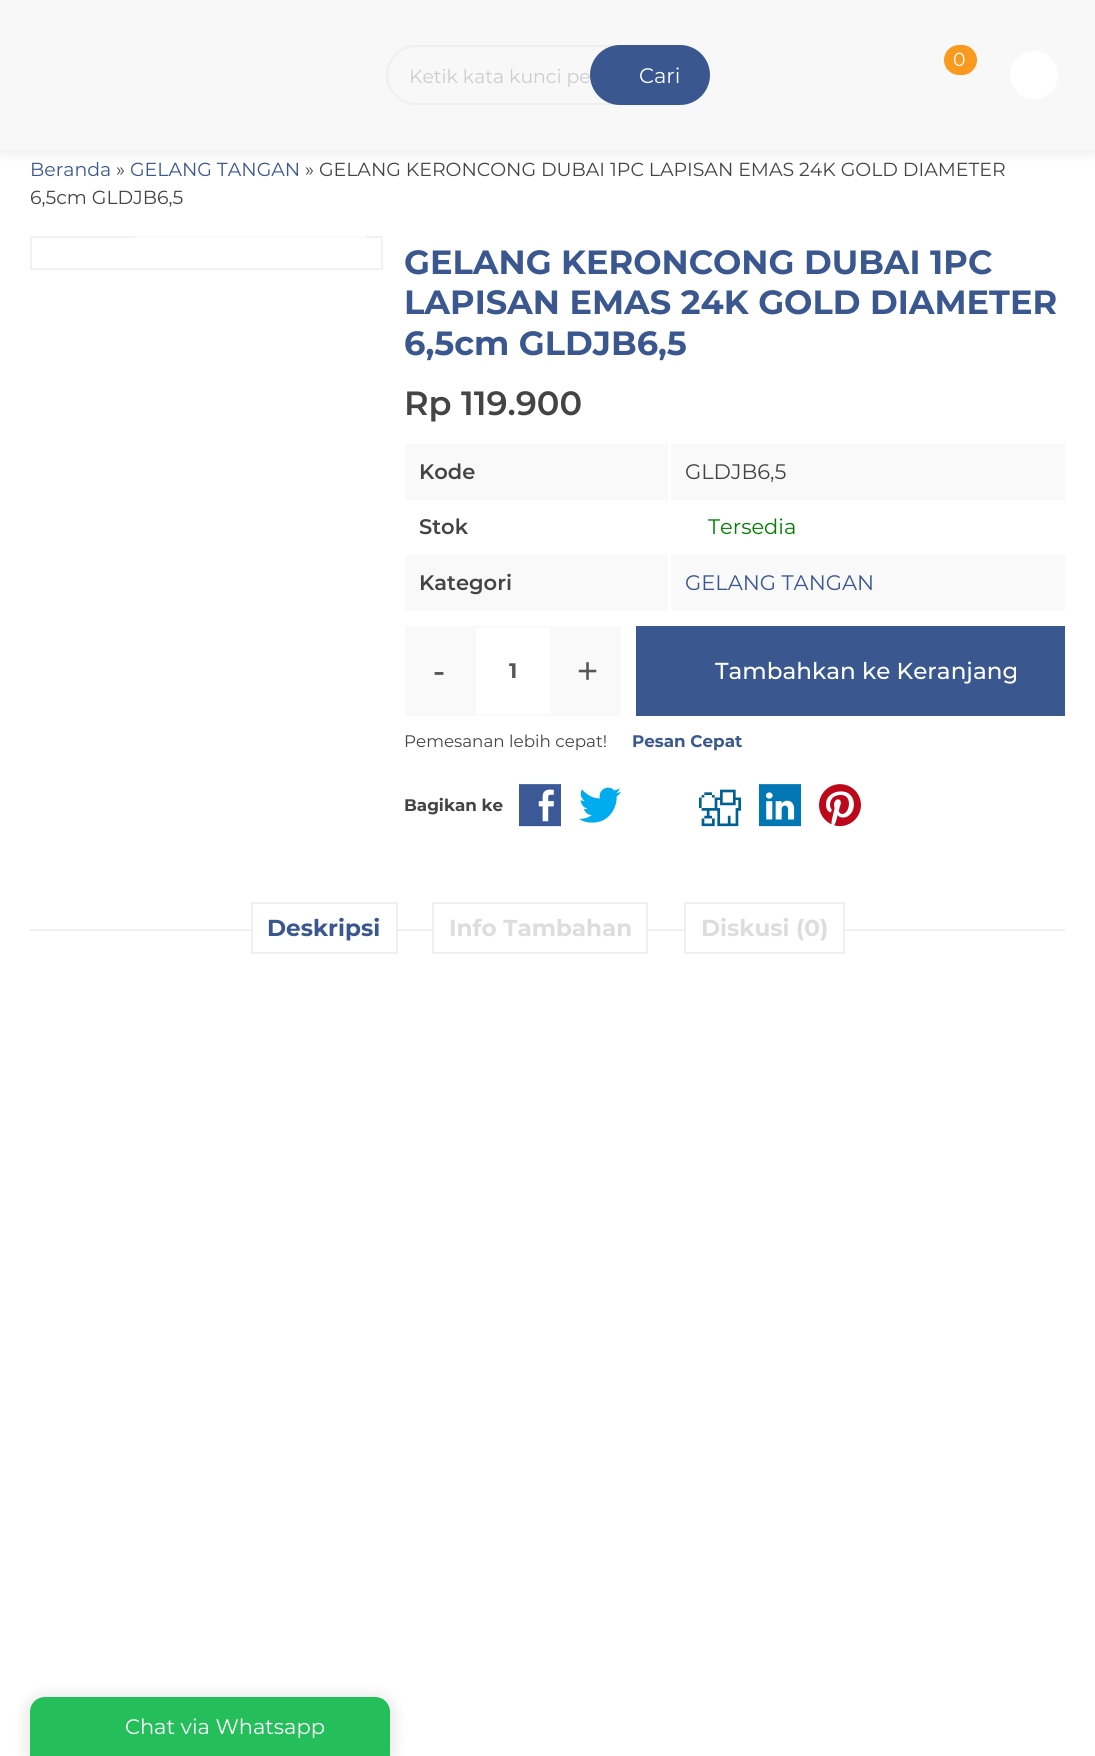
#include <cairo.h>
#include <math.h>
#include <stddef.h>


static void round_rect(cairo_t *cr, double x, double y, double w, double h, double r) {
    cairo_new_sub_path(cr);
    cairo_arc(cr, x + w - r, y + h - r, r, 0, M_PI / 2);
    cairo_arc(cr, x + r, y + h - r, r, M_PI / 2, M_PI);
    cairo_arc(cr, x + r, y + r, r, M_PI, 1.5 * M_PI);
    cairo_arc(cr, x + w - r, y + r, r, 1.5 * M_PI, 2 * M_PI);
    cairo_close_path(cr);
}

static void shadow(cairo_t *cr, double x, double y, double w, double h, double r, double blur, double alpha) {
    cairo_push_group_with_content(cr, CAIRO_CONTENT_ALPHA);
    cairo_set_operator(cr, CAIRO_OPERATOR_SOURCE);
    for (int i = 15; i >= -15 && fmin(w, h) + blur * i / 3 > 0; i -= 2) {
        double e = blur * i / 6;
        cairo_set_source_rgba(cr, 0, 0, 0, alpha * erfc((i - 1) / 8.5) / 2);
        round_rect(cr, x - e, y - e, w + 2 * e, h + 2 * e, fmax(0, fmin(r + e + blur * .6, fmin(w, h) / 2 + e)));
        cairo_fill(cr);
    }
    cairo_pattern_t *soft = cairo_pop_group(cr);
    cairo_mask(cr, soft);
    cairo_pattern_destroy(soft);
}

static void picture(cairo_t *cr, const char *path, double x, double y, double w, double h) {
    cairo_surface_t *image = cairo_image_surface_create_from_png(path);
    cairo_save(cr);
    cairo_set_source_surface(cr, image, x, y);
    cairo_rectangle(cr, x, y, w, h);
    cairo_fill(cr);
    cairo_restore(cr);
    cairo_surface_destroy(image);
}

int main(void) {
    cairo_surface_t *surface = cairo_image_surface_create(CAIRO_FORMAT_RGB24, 1095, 1756);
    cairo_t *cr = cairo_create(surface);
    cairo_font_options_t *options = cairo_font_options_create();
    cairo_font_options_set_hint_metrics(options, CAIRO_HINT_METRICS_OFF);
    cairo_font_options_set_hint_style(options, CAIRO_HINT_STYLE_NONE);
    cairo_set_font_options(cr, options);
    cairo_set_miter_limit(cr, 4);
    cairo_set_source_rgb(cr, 1, 1, 1);
    cairo_paint(cr);
    cairo_set_source_rgb(cr, 0, 0, 0);
    shadow(cr, 0, -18, 1095, 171, 0, 6, 0.08);
    cairo_set_source_rgb(cr, 0.969, 0.969, 0.969);
    cairo_rectangle(cr, 0, 0, 1095, 150);
    cairo_fill(cr);
    cairo_set_source_rgb(cr, 0.973, 0.6, 0.114);
    round_rect(cr, 944, 45, 33, 30, 15);
    cairo_fill(cr);
    cairo_select_font_face(cr, "Montserrat", CAIRO_FONT_SLANT_NORMAL, CAIRO_FONT_WEIGHT_NORMAL);
    cairo_set_font_size(cr, 18.9);
    cairo_set_source_rgb(cr, 1, 1, 1);
    cairo_move_to(cr, 953, 66);
    cairo_show_text(cr, "0");
    cairo_new_path(cr);
    cairo_arc(cr, 1034, 75, 24, 0, 2 * M_PI);
    cairo_fill(cr);
    round_rect(cr, 387, 46, 322, 58, 29);
    cairo_set_source_rgb(cr, 0.937, 0.937, 0.937);
    cairo_stroke(cr);
    cairo_set_source_rgb(cr, 0.8, 0.8, 0.8);
    cairo_move_to(cr, 409, 83);
    cairo_show_text(cr, "Ketik kata kunci pe");
    cairo_set_source_rgb(cr, 0.227, 0.345, 0.561);
    round_rect(cr, 590, 45, 120, 60, 30);
    cairo_fill(cr);
    cairo_set_font_size(cr, 21);
    cairo_set_source_rgb(cr, 1, 1, 1);
    cairo_move_to(cr, 639, 83);
    cairo_show_text(cr, "Cari");
    cairo_set_font_size(cr, 18.9);
    cairo_set_source_rgb(cr, 0.227, 0.345, 0.561);
    cairo_move_to(cr, 30, 176);
    cairo_show_text(cr, "Beranda");
    cairo_set_source_rgb(cr, 0.267, 0.267, 0.267);
    cairo_move_to(cr, 116, 176);
    cairo_show_text(cr, "»");
    cairo_set_source_rgb(cr, 0.227, 0.345, 0.561);
    cairo_move_to(cr, 130, 176);
    cairo_show_text(cr, "GELANG TANGAN");
    cairo_set_source_rgb(cr, 0.267, 0.267, 0.267);
    cairo_move_to(cr, 305, 176);
    cairo_show_text(cr, "» GELANG KERONCONG DUBAI 1PC LAPISAN EMAS 24K GOLD DIAMETER");
    cairo_move_to(cr, 30, 204);
    cairo_show_text(cr, "6,5cm GLDJB6,5");
    cairo_rectangle(cr, 31, 237, 351, 32);
    cairo_set_source_rgb(cr, 0.949, 0.949, 0.949);
    cairo_stroke(cr);
    cairo_set_source_rgba(cr, 1, 1, 1, 0.8);
    cairo_rectangle(cr, 135, 236, 231, 2);
    cairo_fill(cr);
    cairo_select_font_face(cr, "Montserrat", CAIRO_FONT_SLANT_NORMAL, CAIRO_FONT_WEIGHT_BOLD);
    cairo_set_font_size(cr, 33.6);
    cairo_set_source_rgb(cr, 0.227, 0.345, 0.561);
    cairo_move_to(cr, 404, 274);
    cairo_show_text(cr, "GELANG KERONCONG DUBAI 1PC");
    cairo_move_to(cr, 404, 314);
    cairo_show_text(cr, "LAPISAN EMAS 24K GOLD DIAMETER");
    cairo_move_to(cr, 404, 355);
    cairo_show_text(cr, "6,5cm GLDJB6,5");
    cairo_select_font_face(cr, "Montserrat SemiBold", CAIRO_FONT_SLANT_NORMAL, CAIRO_FONT_WEIGHT_NORMAL);
    cairo_set_source_rgb(cr, 0.267, 0.267, 0.267);
    cairo_move_to(cr, 404, 415);
    cairo_show_text(cr, "Rp 119.900");
    cairo_set_source_rgb(cr, 0.976, 0.976, 0.976);
    cairo_rectangle(cr, 405, 444, 660, 56);
    cairo_fill(cr);
    cairo_set_font_size(cr, 21);
    cairo_set_source_rgb(cr, 0.267, 0.267, 0.267);
    cairo_move_to(cr, 419, 479);
    cairo_show_text(cr, "Kode");
    cairo_select_font_face(cr, "Montserrat", CAIRO_FONT_SLANT_NORMAL, CAIRO_FONT_WEIGHT_NORMAL);
    cairo_move_to(cr, 685, 479);
    cairo_show_text(cr, "GLDJB6,5");
    cairo_set_source_rgb(cr, 1, 1, 1);
    cairo_rectangle(cr, 668, 443, 3, 58);
    cairo_fill(cr);
    cairo_select_font_face(cr, "Montserrat SemiBold", CAIRO_FONT_SLANT_NORMAL, CAIRO_FONT_WEIGHT_NORMAL);
    cairo_set_source_rgb(cr, 0.267, 0.267, 0.267);
    cairo_move_to(cr, 419, 534);
    cairo_show_text(cr, "Stok");
    cairo_select_font_face(cr, "Montserrat", CAIRO_FONT_SLANT_NORMAL, CAIRO_FONT_WEIGHT_NORMAL);
    cairo_set_source_rgb(cr, 0, 0.502, 0);
    cairo_move_to(cr, 708, 534);
    cairo_show_text(cr, "Tersedia");
    cairo_set_source_rgb(cr, 0.976, 0.976, 0.976);
    cairo_rectangle(cr, 405, 555, 660, 56);
    cairo_fill(cr);
    cairo_set_source_rgb(cr, 1, 1, 1);
    cairo_rectangle(cr, 668, 554, 3, 58);
    cairo_fill(cr);
    cairo_select_font_face(cr, "Montserrat SemiBold", CAIRO_FONT_SLANT_NORMAL, CAIRO_FONT_WEIGHT_NORMAL);
    cairo_set_source_rgb(cr, 0.267, 0.267, 0.267);
    cairo_move_to(cr, 419, 590);
    cairo_show_text(cr, "Kategori");
    cairo_select_font_face(cr, "Montserrat", CAIRO_FONT_SLANT_NORMAL, CAIRO_FONT_WEIGHT_NORMAL);
    cairo_set_source_rgb(cr, 0.227, 0.345, 0.561);
    cairo_move_to(cr, 685, 590);
    cairo_show_text(cr, "GELANG TANGAN");
    cairo_set_source_rgb(cr, 0.976, 0.976, 0.976);
    cairo_rectangle(cr, 405, 626, 69, 90);
    cairo_fill(cr);
    cairo_select_font_face(cr, "Liberation Sans", CAIRO_FONT_SLANT_NORMAL, CAIRO_FONT_WEIGHT_NORMAL);
    cairo_set_font_size(cr, 36);
    cairo_set_source_rgb(cr, 0.333, 0.333, 0.333);
    cairo_move_to(cr, 433, 683);
    cairo_show_text(cr, "-");
    cairo_rectangle(cr, 475, 627, 76, 88);
    cairo_set_source_rgb(cr, 0.976, 0.976, 0.976);
    cairo_stroke(cr);
    cairo_select_font_face(cr, "Montserrat", CAIRO_FONT_SLANT_NORMAL, CAIRO_FONT_WEIGHT_BOLD);
    cairo_set_font_size(cr, 21);
    cairo_set_source_rgb(cr, 0.333, 0.333, 0.333);
    cairo_move_to(cr, 509, 678);
    cairo_show_text(cr, "1");
    cairo_set_source_rgb(cr, 0.976, 0.976, 0.976);
    cairo_rectangle(cr, 552, 626, 69, 90);
    cairo_fill(cr);
    cairo_select_font_face(cr, "Liberation Sans", CAIRO_FONT_SLANT_NORMAL, CAIRO_FONT_WEIGHT_NORMAL);
    cairo_set_font_size(cr, 36);
    cairo_set_source_rgb(cr, 0.333, 0.333, 0.333);
    cairo_move_to(cr, 577, 683);
    cairo_show_text(cr, "+");
    cairo_set_source_rgb(cr, 0.227, 0.345, 0.561);
    cairo_rectangle(cr, 636, 626, 429, 90);
    cairo_fill(cr);
    cairo_select_font_face(cr, "Montserrat Medium", CAIRO_FONT_SLANT_NORMAL, CAIRO_FONT_WEIGHT_NORMAL);
    cairo_set_font_size(cr, 23.1);
    cairo_set_source_rgb(cr, 1, 1, 1);
    cairo_move_to(cr, 715, 679);
    cairo_show_text(cr, "Tambahkan ke Keranjang");
    cairo_select_font_face(cr, "Montserrat", CAIRO_FONT_SLANT_NORMAL, CAIRO_FONT_WEIGHT_NORMAL);
    cairo_set_font_size(cr, 16.75);
    cairo_set_source_rgb(cr, 0.267, 0.267, 0.267);
    cairo_move_to(cr, 404, 747);
    cairo_show_text(cr, "Pemesanan lebih cepat!");
    cairo_select_font_face(cr, "Montserrat", CAIRO_FONT_SLANT_NORMAL, CAIRO_FONT_WEIGHT_BOLD);
    cairo_set_source_rgb(cr, 0.227, 0.345, 0.561);
    cairo_move_to(cr, 632, 747);
    cairo_show_text(cr, "Pesan Cepat");
    cairo_set_source_rgb(cr, 0.267, 0.267, 0.267);
    cairo_move_to(cr, 404, 811);
    cairo_show_text(cr, "Bagikan ke");
    picture(cr, "img1.png", 519, 784, 42, 43);
    picture(cr, "img2.png", 579, 787, 42, 36);
    picture(cr, "img3.png", 699, 789, 42, 38);
    picture(cr, "img4.png", 759, 784, 42, 43);
    picture(cr, "img5.png", 819, 784, 42, 43);
    cairo_set_source_rgb(cr, 0.937, 0.937, 0.937);
    cairo_rectangle(cr, 30, 929, 1035, 2);
    cairo_fill(cr);
    cairo_set_source_rgb(cr, 1, 1, 1);
    cairo_rectangle(cr, 253, 929, 143, 2);
    cairo_fill(cr);
    cairo_rectangle(cr, 252, 903, 145, 50);
    cairo_set_source_rgb(cr, 0.937, 0.937, 0.937);
    cairo_stroke(cr);
    cairo_set_font_size(cr, 23.1);
    cairo_set_source_rgb(cr, 0.227, 0.345, 0.561);
    cairo_move_to(cr, 267, 936);
    cairo_show_text(cr, "Deskripsi");
    cairo_set_source_rgb(cr, 1, 1, 1);
    cairo_rectangle(cr, 434, 929, 212, 2);
    cairo_fill(cr);
    cairo_rectangle(cr, 433, 903, 214, 50);
    cairo_set_source_rgb(cr, 0.937, 0.937, 0.937);
    cairo_stroke(cr);
    cairo_set_source_rgb(cr, 0.867, 0.867, 0.867);
    cairo_move_to(cr, 449, 936);
    cairo_show_text(cr, "Info Tambahan");
    cairo_set_source_rgb(cr, 1, 1, 1);
    cairo_rectangle(cr, 686, 929, 157, 2);
    cairo_fill(cr);
    cairo_rectangle(cr, 685, 903, 159, 50);
    cairo_set_source_rgb(cr, 0.937, 0.937, 0.937);
    cairo_stroke(cr);
    cairo_set_source_rgb(cr, 0.867, 0.867, 0.867);
    cairo_move_to(cr, 701, 936);
    cairo_show_text(cr, "Diskusi (0)");
    cairo_set_source_rgb(cr, 0.2, 0.2, 0.2);
    shadow(cr, 21, 1691, 378, 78, 24, 4.5, 0.07);
    cairo_set_source_rgb(cr, 0.141, 0.745, 0.357);
    cairo_new_path(cr);
    cairo_move_to(cr, 45, 1697);
    cairo_line_to(cr, 375, 1697);
    cairo_curve_to(cr, 383.5, 1697, 390, 1703.5, 390, 1712);
    cairo_line_to(cr, 390, 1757);
    cairo_line_to(cr, 30, 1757);
    cairo_line_to(cr, 30, 1712);
    cairo_curve_to(cr, 30, 1703.5, 36.5, 1697, 45, 1697);
    cairo_close_path(cr);
    cairo_fill(cr);
    cairo_select_font_face(cr, "Montserrat", CAIRO_FONT_SLANT_NORMAL, CAIRO_FONT_WEIGHT_NORMAL);
    cairo_set_font_size(cr, 21);
    cairo_set_source_rgb(cr, 1, 1, 1);
    cairo_move_to(cr, 125, 1734);
    cairo_show_text(cr, "Chat via Whatsapp");
    cairo_surface_write_to_png(surface, "page.png");
    cairo_font_options_destroy(options);
    cairo_destroy(cr);
    cairo_surface_destroy(surface);
    return 0;
}
